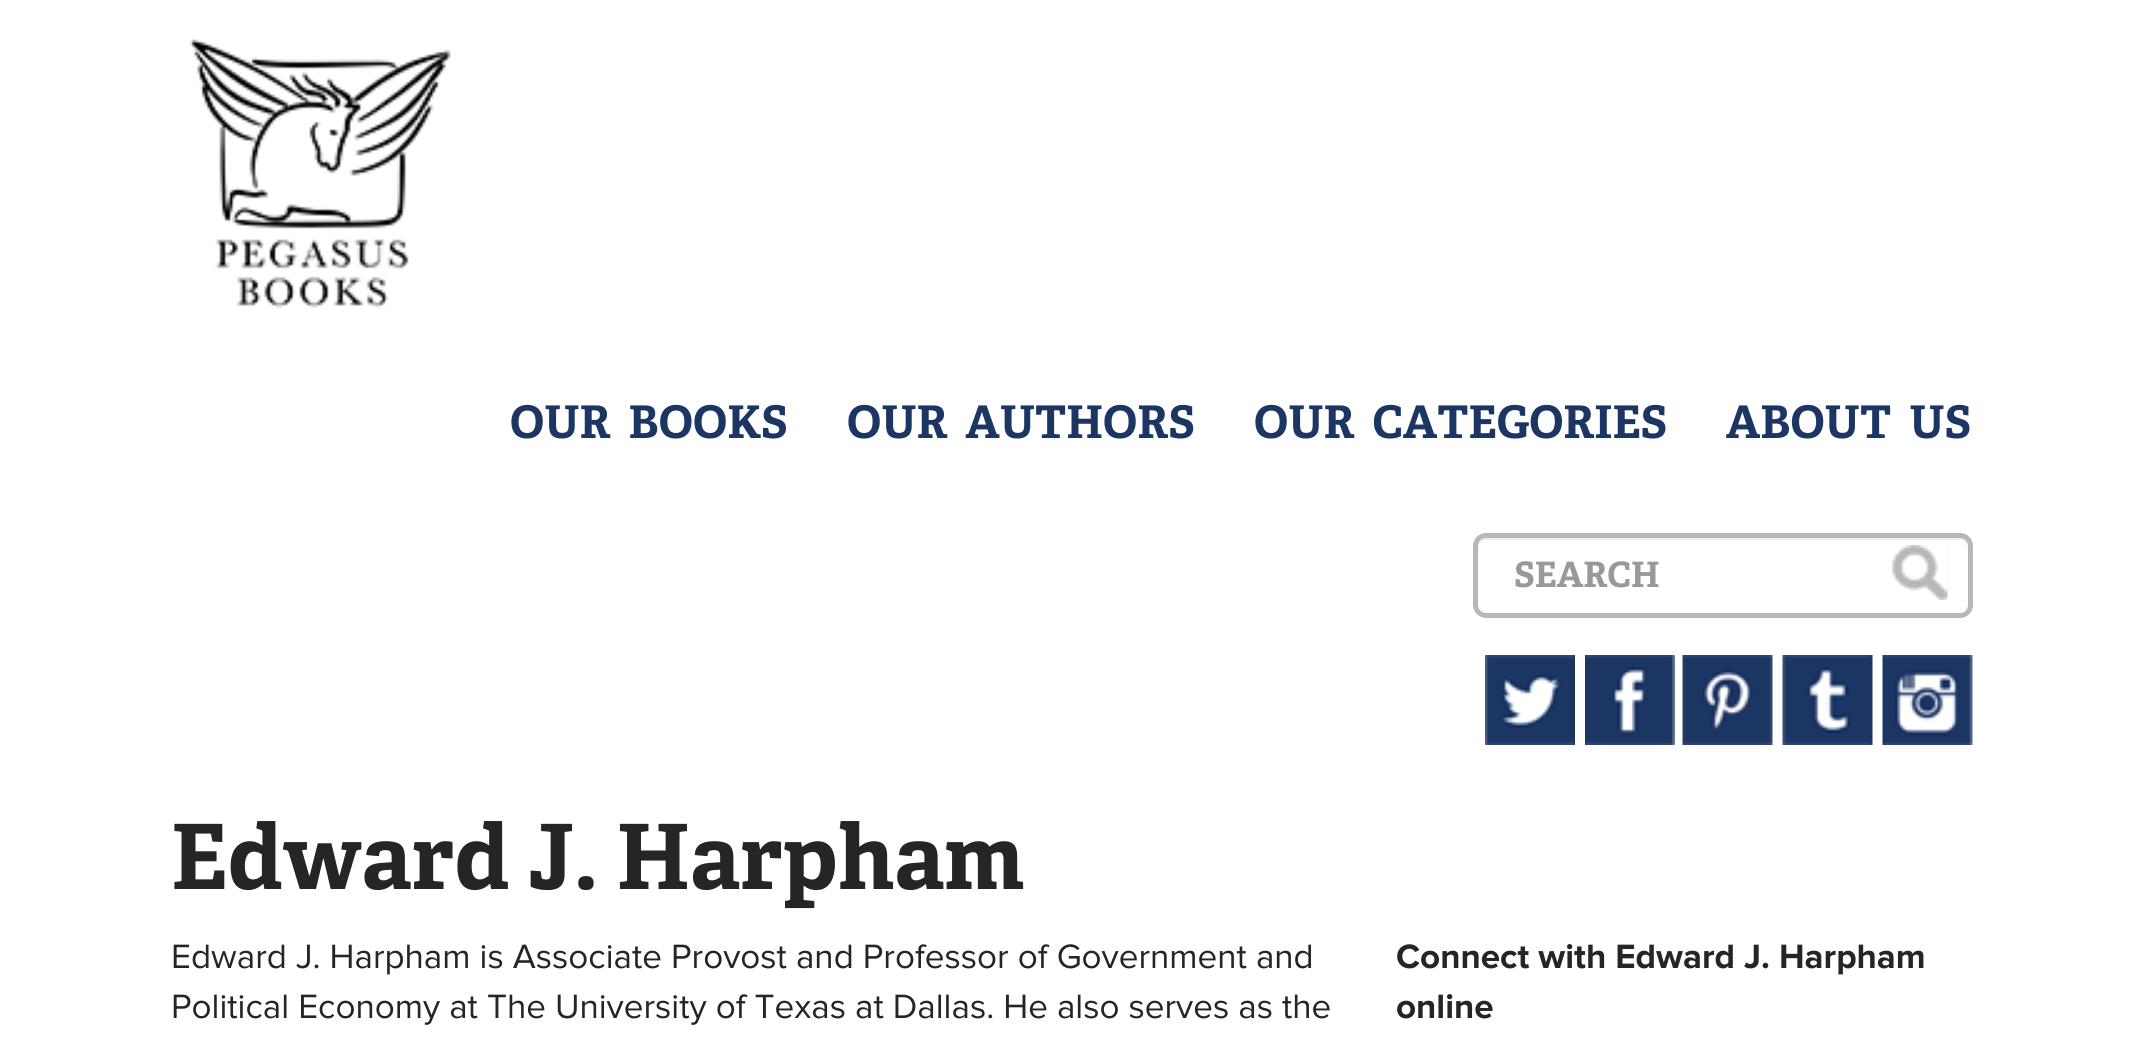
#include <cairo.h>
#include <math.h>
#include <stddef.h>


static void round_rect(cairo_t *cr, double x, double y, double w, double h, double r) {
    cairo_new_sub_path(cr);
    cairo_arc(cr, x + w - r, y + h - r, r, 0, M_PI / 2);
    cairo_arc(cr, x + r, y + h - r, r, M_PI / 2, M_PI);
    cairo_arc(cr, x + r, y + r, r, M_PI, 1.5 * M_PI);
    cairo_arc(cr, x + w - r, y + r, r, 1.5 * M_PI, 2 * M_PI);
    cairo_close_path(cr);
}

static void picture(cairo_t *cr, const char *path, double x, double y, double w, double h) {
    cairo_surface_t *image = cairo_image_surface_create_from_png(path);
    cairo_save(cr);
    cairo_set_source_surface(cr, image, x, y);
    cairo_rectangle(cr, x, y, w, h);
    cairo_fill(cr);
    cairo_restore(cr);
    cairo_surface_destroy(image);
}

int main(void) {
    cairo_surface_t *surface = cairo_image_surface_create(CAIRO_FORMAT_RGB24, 2142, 1043);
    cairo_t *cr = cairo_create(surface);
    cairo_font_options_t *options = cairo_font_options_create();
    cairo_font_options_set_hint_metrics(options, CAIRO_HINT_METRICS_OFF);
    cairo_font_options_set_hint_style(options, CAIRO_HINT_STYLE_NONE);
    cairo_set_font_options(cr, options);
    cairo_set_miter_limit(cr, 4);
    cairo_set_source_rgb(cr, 1, 1, 1);
    cairo_paint(cr);
    picture(cr, "img1.png", 189, 39, 262, 270);
    cairo_select_font_face(cr, "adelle", CAIRO_FONT_SLANT_NORMAL, CAIRO_FONT_WEIGHT_BOLD);
    cairo_set_font_size(cr, 45);
    cairo_set_source_rgb(cr, 0.11, 0.212, 0.392);
    cairo_move_to(cr, 510, 438);
    cairo_show_text(cr, "OUR  BOOKS");
    cairo_move_to(cr, 847, 438);
    cairo_show_text(cr, "OUR  AUTHORS");
    cairo_move_to(cr, 1254, 438);
    cairo_show_text(cr, "OUR  CATEGORIES");
    cairo_move_to(cr, 1726, 438);
    cairo_show_text(cr, "ABOUT  US");
    cairo_set_source_rgb(cr, 0.925, 0.925, 0.925);
    cairo_new_path(cr);
    cairo_move_to(cr, 1485, 540);
    cairo_line_to(cr, 1960, 540);
    cairo_curve_to(cr, 1964, 540, 1968, 543, 1968, 548);
    cairo_line_to(cr, 1968, 546);
    cairo_curve_to(cr, 1968, 542, 1964, 538, 1960, 538);
    cairo_line_to(cr, 1486, 538);
    cairo_curve_to(cr, 1482, 538, 1478, 542, 1478, 546);
    cairo_line_to(cr, 1478, 548);
    cairo_curve_to(cr, 1478, 543, 1481, 540, 1485, 540);
    cairo_close_path(cr);
    cairo_fill(cr);
    round_rect(cr, 1475.5, 535.5, 495, 80, 10.5);
    cairo_set_source_rgb(cr, 0.722, 0.722, 0.722);
    cairo_set_line_width(cr, 5);
    cairo_stroke(cr);
    cairo_set_font_size(cr, 35);
    cairo_set_source_rgb(cr, 0.6, 0.6, 0.6);
    cairo_move_to(cr, 1514, 587);
    cairo_show_text(cr, "SEARCH");
    cairo_set_source_rgb(cr, 0.937, 0.937, 0.937);
    cairo_rectangle(cr, 1947, 545, 1, 55);
    cairo_fill(cr);
    picture(cr, "img2.png", 1892, 545, 56, 55);
    picture(cr, "img3.png", 1485, 655, 90, 90);
    picture(cr, "img4.png", 1585, 655, 90, 90);
    picture(cr, "img5.png", 1682, 655, 91, 90);
    picture(cr, "img6.png", 1782, 655, 91, 90);
    picture(cr, "img7.png", 1882, 655, 91, 90);
    cairo_set_font_size(cr, 90);
    cairo_set_source_rgb(cr, 0.145, 0.145, 0.145);
    cairo_move_to(cr, 171, 889);
    cairo_show_text(cr, "Edward J. Harpham");
    cairo_select_font_face(cr, "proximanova", CAIRO_FONT_SLANT_NORMAL, CAIRO_FONT_WEIGHT_NORMAL);
    cairo_set_font_size(cr, 35);
    cairo_move_to(cr, 171, 968);
    cairo_show_text(cr, "Edward J. Harpham is Associate Provost and Professor of Government and");
    cairo_move_to(cr, 171, 1018);
    cairo_show_text(cr, "Political Economy at The University of Texas at Dallas. He also serves as the");
    cairo_select_font_face(cr, "proximanova", CAIRO_FONT_SLANT_NORMAL, CAIRO_FONT_WEIGHT_BOLD);
    cairo_move_to(cr, 1396, 968);
    cairo_show_text(cr, "Connect with Edward J. Harpham");
    cairo_move_to(cr, 1396, 1018);
    cairo_show_text(cr, "online");
    cairo_surface_write_to_png(surface, "page.png");
    cairo_font_options_destroy(options);
    cairo_destroy(cr);
    cairo_surface_destroy(surface);
    return 0;
}
